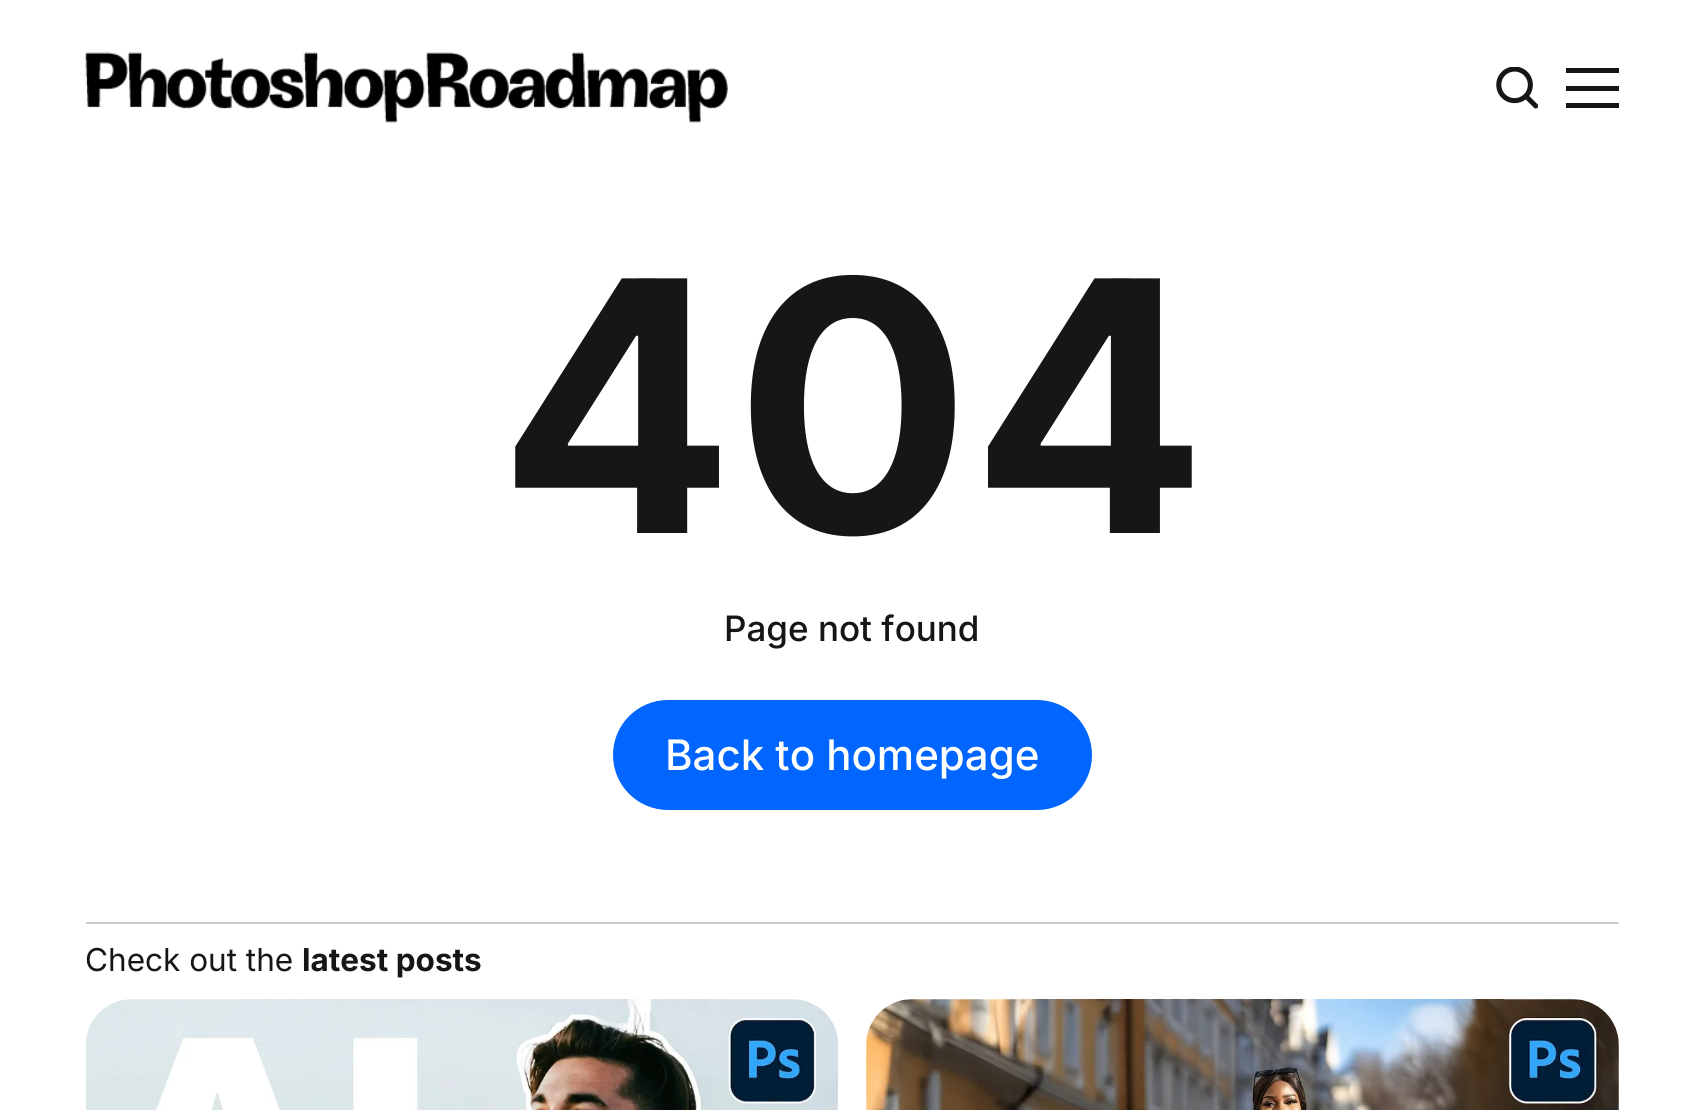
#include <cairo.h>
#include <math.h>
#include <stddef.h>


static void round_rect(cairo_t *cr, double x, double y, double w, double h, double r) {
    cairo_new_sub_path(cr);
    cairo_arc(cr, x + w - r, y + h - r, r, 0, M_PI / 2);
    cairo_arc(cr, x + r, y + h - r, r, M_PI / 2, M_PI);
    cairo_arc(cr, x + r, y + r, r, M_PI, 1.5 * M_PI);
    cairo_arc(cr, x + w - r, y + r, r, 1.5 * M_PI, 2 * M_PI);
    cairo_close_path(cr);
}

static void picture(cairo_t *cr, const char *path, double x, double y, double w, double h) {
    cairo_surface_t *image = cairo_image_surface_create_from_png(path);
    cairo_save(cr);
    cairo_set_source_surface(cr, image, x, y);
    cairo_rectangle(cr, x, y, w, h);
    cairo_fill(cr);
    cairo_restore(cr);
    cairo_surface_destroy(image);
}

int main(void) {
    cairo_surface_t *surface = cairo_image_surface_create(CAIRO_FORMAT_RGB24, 1703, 1110);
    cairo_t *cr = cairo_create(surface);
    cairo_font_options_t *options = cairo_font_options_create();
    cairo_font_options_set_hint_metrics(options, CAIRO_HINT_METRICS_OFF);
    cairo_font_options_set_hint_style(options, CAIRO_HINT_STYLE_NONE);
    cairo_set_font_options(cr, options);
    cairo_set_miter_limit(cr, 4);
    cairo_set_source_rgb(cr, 1, 1, 1);
    cairo_paint(cr);
    picture(cr, "img1.png", 85, 52, 643, 71);
    picture(cr, "img2.png", 1496, 67, 42, 42);
    cairo_set_source_rgb(cr, 0.082, 0.086, 0.094);
    cairo_rectangle(cr, 1566, 68, 53, 5);
    cairo_fill(cr);
    cairo_rectangle(cr, 1566, 86, 53, 5);
    cairo_fill(cr);
    cairo_rectangle(cr, 1566, 103, 53, 5);
    cairo_fill(cr);
    cairo_select_font_face(cr, "Inter", CAIRO_FONT_SLANT_NORMAL, CAIRO_FONT_WEIGHT_BOLD);
    cairo_set_font_size(cr, 350);
    cairo_move_to(cr, 498, 533);
    cairo_show_text(cr, "404");
    cairo_select_font_face(cr, "Inter Medium", CAIRO_FONT_SLANT_NORMAL, CAIRO_FONT_WEIGHT_NORMAL);
    cairo_set_font_size(cr, 35);
    cairo_move_to(cr, 724, 641);
    cairo_show_text(cr, "Page not found");
    cairo_set_source_rgb(cr, 0, 0.4, 1);
    round_rect(cr, 613, 700, 479, 110, 55);
    cairo_fill(cr);
    cairo_set_font_size(cr, 42);
    cairo_set_source_rgb(cr, 1, 1, 1);
    cairo_move_to(cr, 665, 770);
    cairo_show_text(cr, "Back to homepage");
    cairo_set_source_rgb(cr, 0.808, 0.808, 0.816);
    cairo_rectangle(cr, 86, 922, 1533, 2);
    cairo_fill(cr);
    cairo_select_font_face(cr, "Inter", CAIRO_FONT_SLANT_NORMAL, CAIRO_FONT_WEIGHT_NORMAL);
    cairo_set_font_size(cr, 31.5);
    cairo_set_source_rgb(cr, 0.082, 0.086, 0.094);
    cairo_move_to(cr, 85, 971);
    cairo_show_text(cr, "Check out the");
    cairo_select_font_face(cr, "Inter", CAIRO_FONT_SLANT_NORMAL, CAIRO_FONT_WEIGHT_BOLD);
    cairo_move_to(cr, 302, 971);
    cairo_show_text(cr, "latest posts");
    picture(cr, "img3.png", 86, 999, 752, 111);
    picture(cr, "img4.png", 866, 999, 753, 111);
    cairo_surface_write_to_png(surface, "page.png");
    cairo_font_options_destroy(options);
    cairo_destroy(cr);
    cairo_surface_destroy(surface);
    return 0;
}
